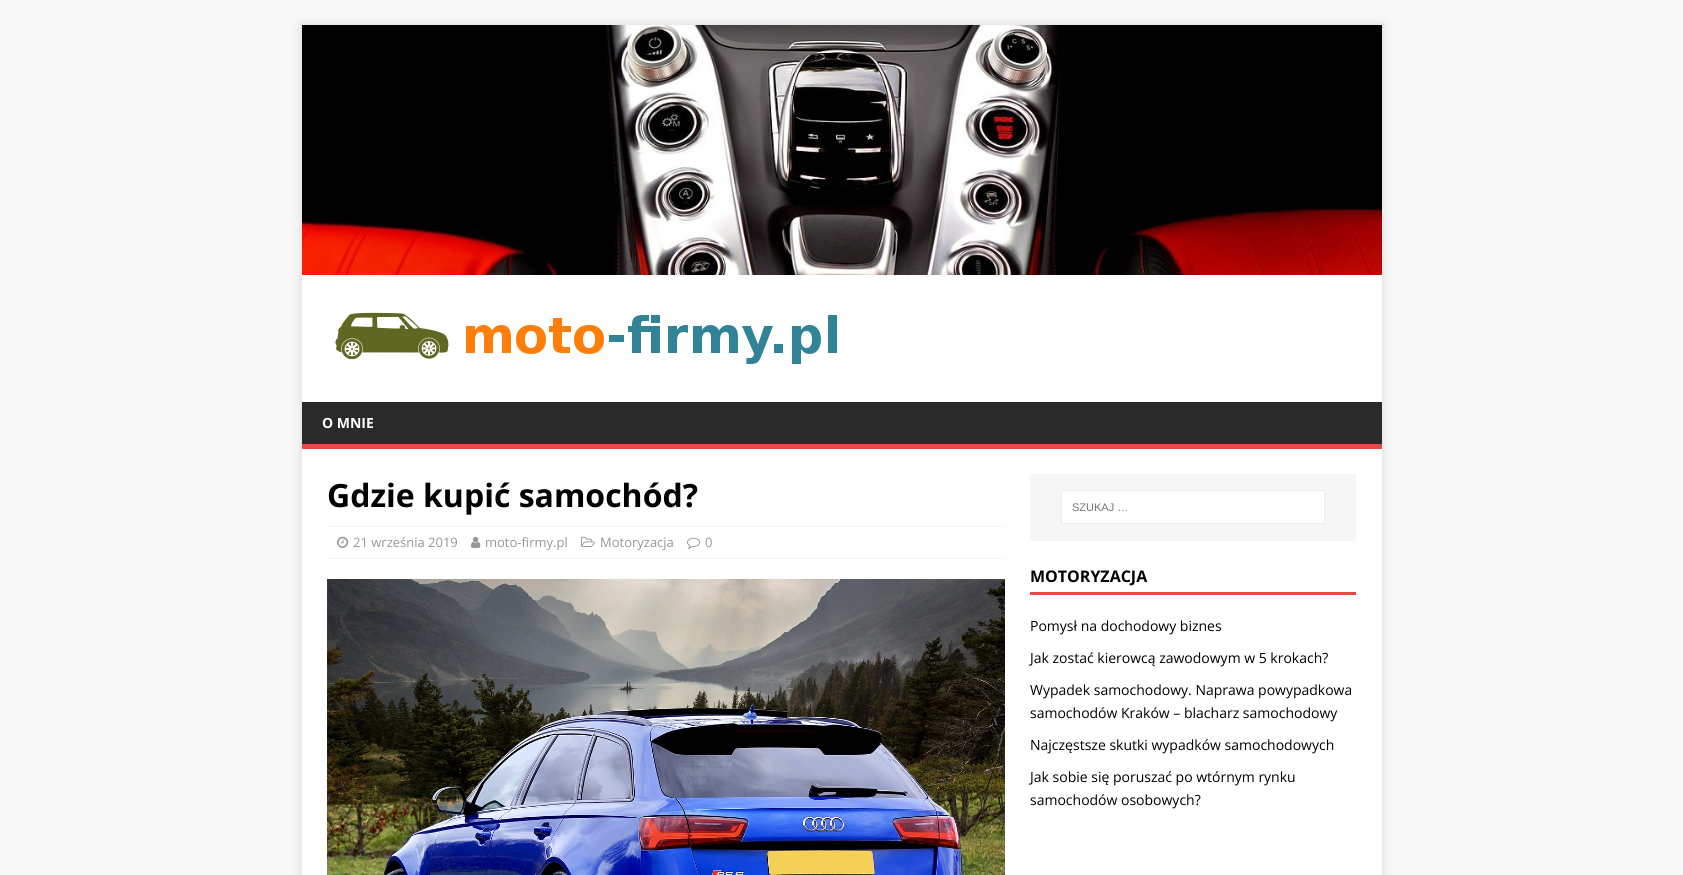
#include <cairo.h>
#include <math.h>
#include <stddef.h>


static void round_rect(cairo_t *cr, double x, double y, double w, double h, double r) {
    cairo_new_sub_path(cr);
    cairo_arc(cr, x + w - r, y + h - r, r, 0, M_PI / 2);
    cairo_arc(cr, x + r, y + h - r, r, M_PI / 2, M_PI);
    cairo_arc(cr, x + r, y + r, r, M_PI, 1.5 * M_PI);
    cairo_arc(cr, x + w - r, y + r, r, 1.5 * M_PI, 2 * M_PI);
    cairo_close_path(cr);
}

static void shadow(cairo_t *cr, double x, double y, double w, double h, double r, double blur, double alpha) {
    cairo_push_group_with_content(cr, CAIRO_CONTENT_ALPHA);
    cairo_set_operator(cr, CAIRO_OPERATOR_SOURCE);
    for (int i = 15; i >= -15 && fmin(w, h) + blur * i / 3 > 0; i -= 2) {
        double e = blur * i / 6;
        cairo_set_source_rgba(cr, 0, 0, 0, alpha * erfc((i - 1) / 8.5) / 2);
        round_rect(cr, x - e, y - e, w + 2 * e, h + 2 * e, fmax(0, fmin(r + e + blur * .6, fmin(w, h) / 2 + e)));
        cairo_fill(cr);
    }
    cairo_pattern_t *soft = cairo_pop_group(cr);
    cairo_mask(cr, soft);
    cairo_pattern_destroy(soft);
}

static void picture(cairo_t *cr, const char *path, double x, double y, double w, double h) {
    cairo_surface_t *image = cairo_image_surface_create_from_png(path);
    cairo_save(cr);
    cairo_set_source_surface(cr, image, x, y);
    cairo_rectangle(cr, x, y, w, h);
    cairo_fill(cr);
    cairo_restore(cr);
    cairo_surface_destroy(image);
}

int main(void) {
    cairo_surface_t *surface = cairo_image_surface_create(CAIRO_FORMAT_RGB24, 1683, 875);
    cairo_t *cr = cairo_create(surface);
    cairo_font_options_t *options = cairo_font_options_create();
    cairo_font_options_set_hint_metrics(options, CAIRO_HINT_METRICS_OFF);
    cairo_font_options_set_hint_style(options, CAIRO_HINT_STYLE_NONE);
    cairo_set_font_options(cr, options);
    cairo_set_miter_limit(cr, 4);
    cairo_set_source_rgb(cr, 0.969, 0.969, 0.969);
    cairo_paint(cr);
    cairo_set_source_rgb(cr, 0.196, 0.196, 0.196);
    shadow(cr, 302, 25, 1080, 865, 0, 5, 0.17);
    cairo_set_source_rgb(cr, 1, 1, 1);
    cairo_rectangle(cr, 302, 275, 1080, 127);
    cairo_fill(cr);
    picture(cr, "img1.png", 302, 25, 1080, 250);
    picture(cr, "img2.png", 335, 312, 502, 52);
    cairo_set_source_rgb(cr, 0.165, 0.165, 0.165);
    cairo_rectangle(cr, 302, 402, 1080, 42);
    cairo_fill(cr);
    cairo_set_source_rgb(cr, 0.902, 0.286, 0.275);
    cairo_rectangle(cr, 302, 444, 1080, 5);
    cairo_fill(cr);
    cairo_select_font_face(cr, "Open Sans", CAIRO_FONT_SLANT_NORMAL, CAIRO_FONT_WEIGHT_BOLD);
    cairo_set_font_size(cr, 14);
    cairo_set_source_rgb(cr, 1, 1, 1);
    cairo_move_to(cr, 322, 428);
    cairo_show_text(cr, "O MNIE");
    cairo_rectangle(cr, 302, 449, 1080, 426);
    cairo_fill(cr);
    cairo_set_font_size(cr, 32);
    cairo_set_source_rgb(cr, 0, 0, 0);
    cairo_move_to(cr, 327, 507);
    cairo_show_text(cr, "Gdzie kupić samochód?");
    cairo_new_path(cr);
    cairo_move_to(cr, 327, 526.5);
    cairo_line_to(cr, 1005, 526.5);
    cairo_set_source_rgb(cr, 0.922, 0.922, 0.922);
    cairo_set_line_width(cr, 1);
    cairo_set_dash(cr, (double[]){1, 1}, 2, 0);
    cairo_stroke(cr);
    cairo_new_path(cr);
    cairo_move_to(cr, 327, 558.5);
    cairo_line_to(cr, 1005, 558.5);
    cairo_stroke(cr);
    picture(cr, "img3.png", 337, 536, 12, 12);
    cairo_select_font_face(cr, "Open Sans", CAIRO_FONT_SLANT_NORMAL, CAIRO_FONT_WEIGHT_NORMAL);
    cairo_set_font_size(cr, 13);
    cairo_set_source_rgb(cr, 0.592, 0.592, 0.592);
    cairo_move_to(cr, 353, 547);
    cairo_show_text(cr, "21 września 2019");
    picture(cr, "img4.png", 471, 536, 10, 12);
    cairo_move_to(cr, 485, 547);
    cairo_show_text(cr, "moto-firmy.pl");
    picture(cr, "img5.png", 581, 536, 14, 11);
    cairo_move_to(cr, 600, 547);
    cairo_show_text(cr, "Motoryzacja");
    picture(cr, "img6.png", 687, 537, 13, 12);
    cairo_move_to(cr, 705, 547);
    cairo_show_text(cr, "0");
    picture(cr, "img7.png", 327, 579, 678, 296);
    cairo_set_source_rgb(cr, 0.961, 0.961, 0.961);
    cairo_rectangle(cr, 1030, 474, 326, 67);
    cairo_fill(cr);
    cairo_set_source_rgb(cr, 1, 1, 1);
    cairo_rectangle(cr, 1061.5, 490.5, 263, 33);
    cairo_fill_preserve(cr);
    cairo_set_source_rgb(cr, 0.922, 0.922, 0.922);
    cairo_set_dash(cr, NULL, 0, 0);
    cairo_stroke(cr);
    cairo_select_font_face(cr, "Liberation Sans", CAIRO_FONT_SLANT_NORMAL, CAIRO_FONT_WEIGHT_NORMAL);
    cairo_set_font_size(cr, 11);
    cairo_set_source_rgb(cr, 0.459, 0.459, 0.459);
    cairo_move_to(cr, 1072, 511);
    cairo_show_text(cr, "SZUKAJ …");
    cairo_set_source_rgb(cr, 0.902, 0.286, 0.275);
    cairo_rectangle(cr, 1030, 592, 326, 3);
    cairo_fill(cr);
    cairo_select_font_face(cr, "Open Sans", CAIRO_FONT_SLANT_NORMAL, CAIRO_FONT_WEIGHT_BOLD);
    cairo_set_font_size(cr, 16);
    cairo_set_source_rgb(cr, 0, 0, 0);
    cairo_move_to(cr, 1030, 582);
    cairo_show_text(cr, "MOTORYZACJA");
    cairo_select_font_face(cr, "Open Sans", CAIRO_FONT_SLANT_NORMAL, CAIRO_FONT_WEIGHT_NORMAL);
    cairo_set_font_size(cr, 14);
    cairo_move_to(cr, 1030, 631);
    cairo_show_text(cr, "Pomysł na dochodowy biznes");
    cairo_move_to(cr, 1030, 663);
    cairo_show_text(cr, "Jak zostać kierowcą zawodowym w 5 krokach?");
    cairo_move_to(cr, 1030, 695);
    cairo_show_text(cr, "Wypadek samochodowy. Naprawa powypadkowa");
    cairo_move_to(cr, 1030, 718);
    cairo_show_text(cr, "samochodów Kraków – blacharz samochodowy");
    cairo_move_to(cr, 1030, 750);
    cairo_show_text(cr, "Najczęstsze skutki wypadków samochodowych");
    cairo_move_to(cr, 1030, 782);
    cairo_show_text(cr, "Jak sobie się poruszać po wtórnym rynku");
    cairo_move_to(cr, 1030, 805);
    cairo_show_text(cr, "samochodów osobowych?");
    cairo_surface_write_to_png(surface, "page.png");
    cairo_font_options_destroy(options);
    cairo_destroy(cr);
    cairo_surface_destroy(surface);
    return 0;
}
